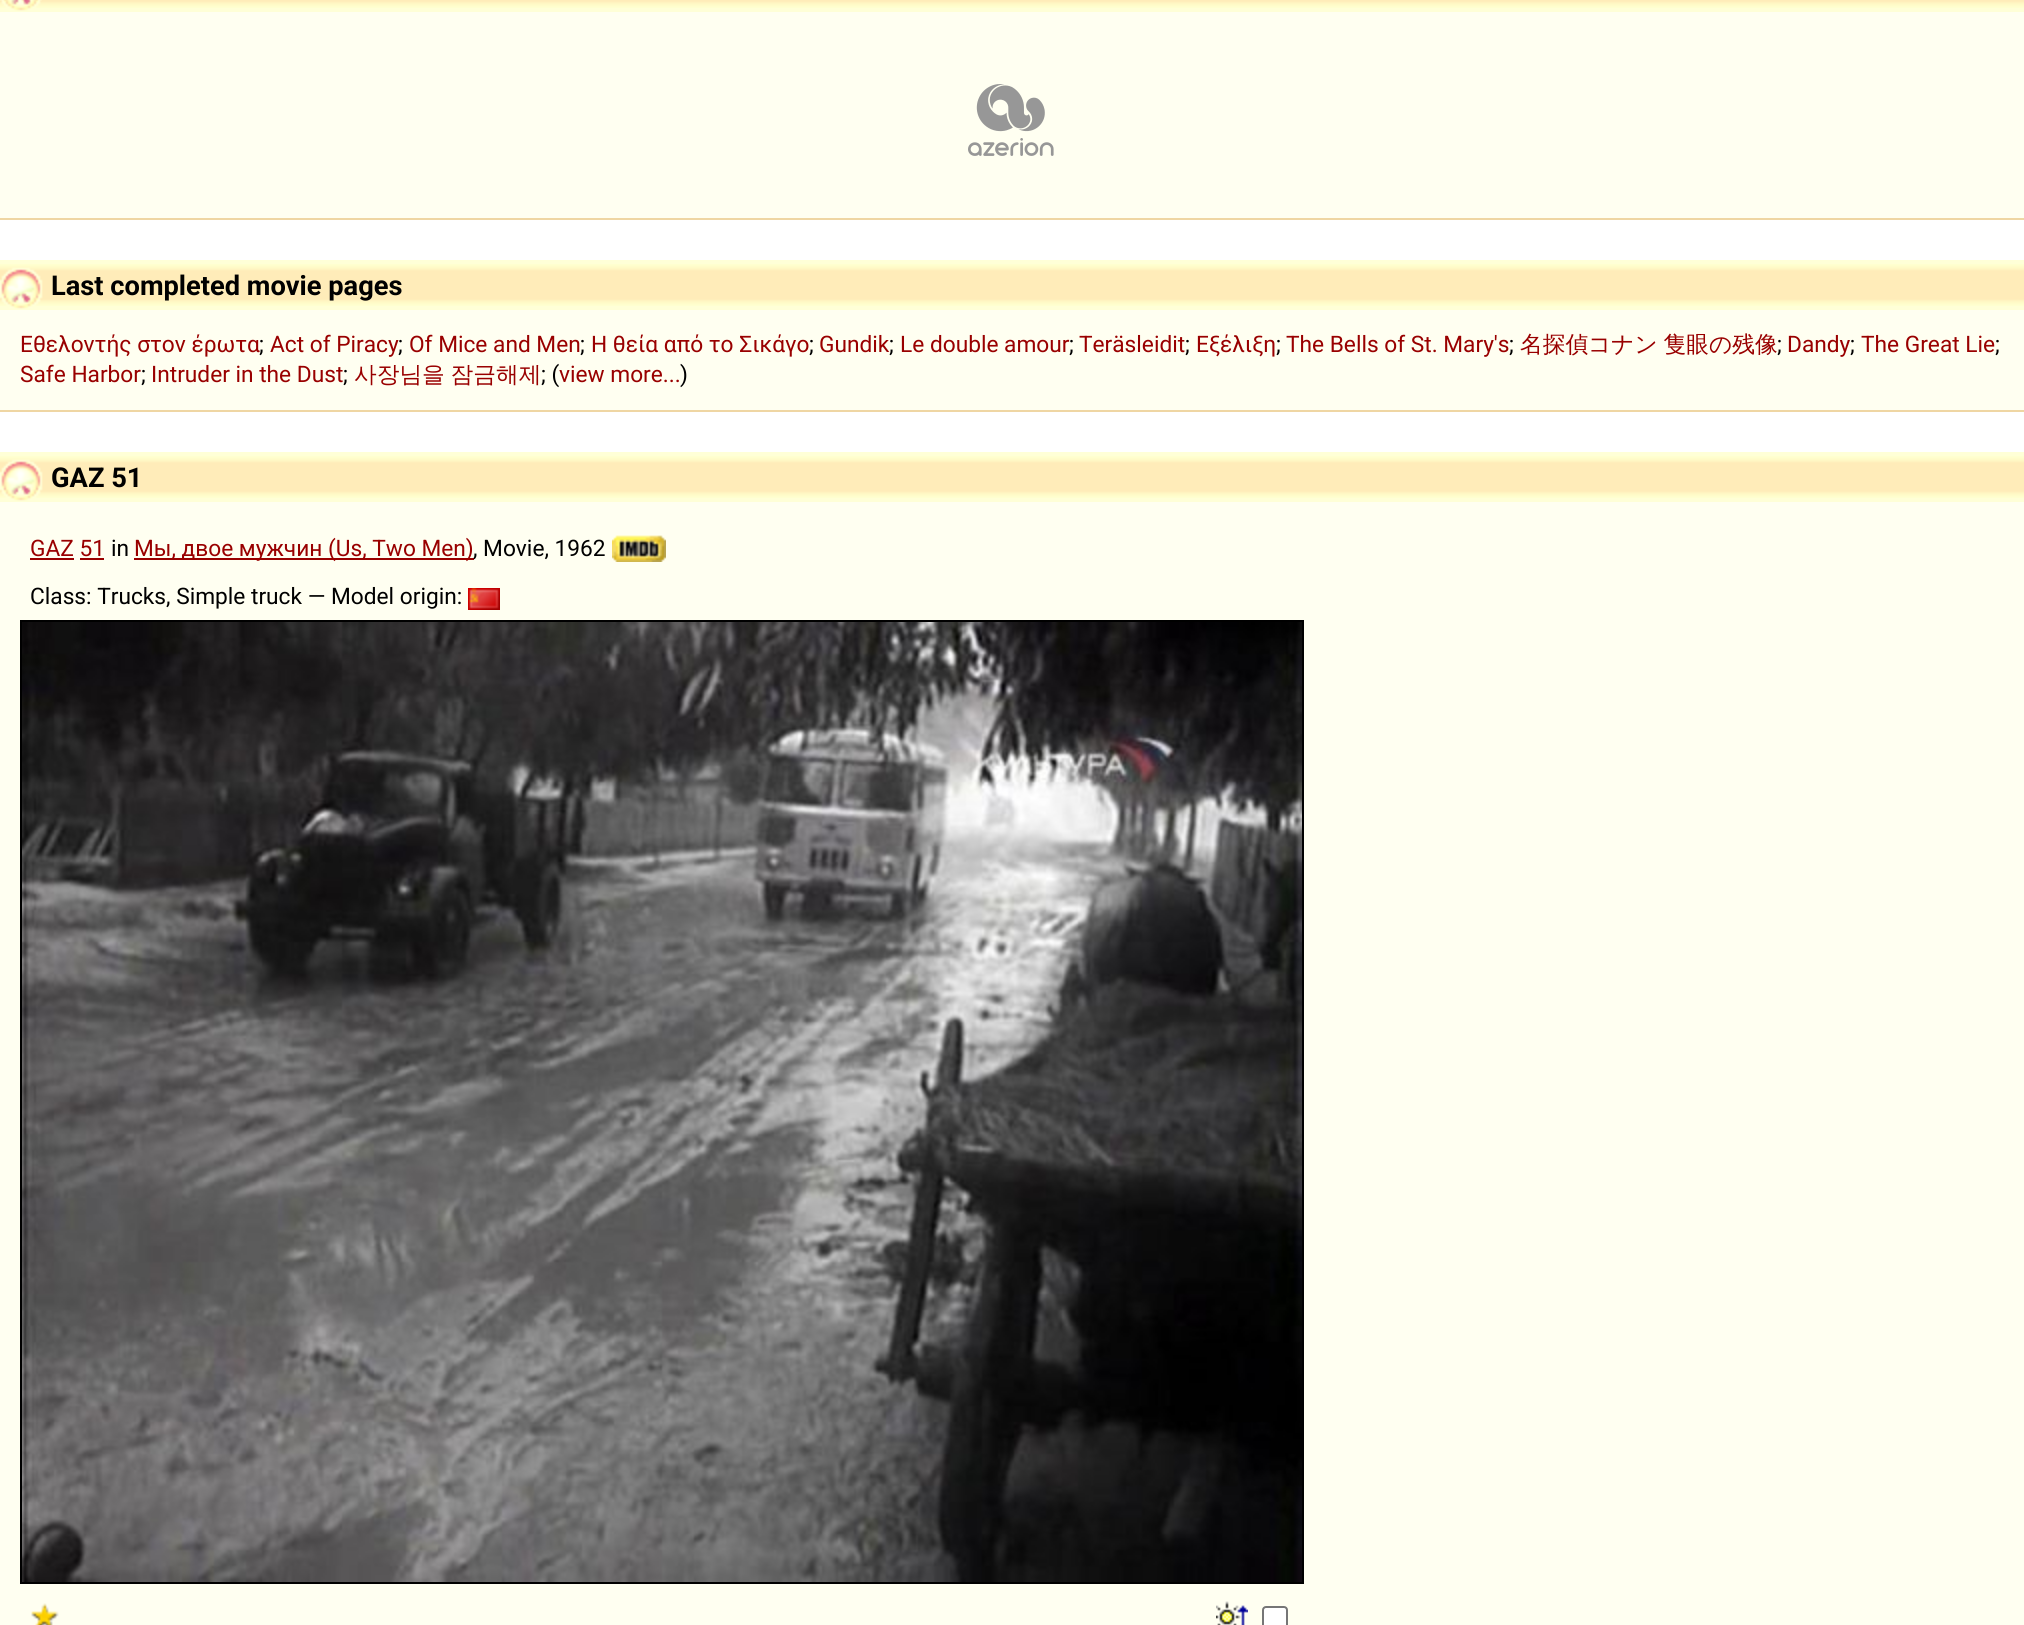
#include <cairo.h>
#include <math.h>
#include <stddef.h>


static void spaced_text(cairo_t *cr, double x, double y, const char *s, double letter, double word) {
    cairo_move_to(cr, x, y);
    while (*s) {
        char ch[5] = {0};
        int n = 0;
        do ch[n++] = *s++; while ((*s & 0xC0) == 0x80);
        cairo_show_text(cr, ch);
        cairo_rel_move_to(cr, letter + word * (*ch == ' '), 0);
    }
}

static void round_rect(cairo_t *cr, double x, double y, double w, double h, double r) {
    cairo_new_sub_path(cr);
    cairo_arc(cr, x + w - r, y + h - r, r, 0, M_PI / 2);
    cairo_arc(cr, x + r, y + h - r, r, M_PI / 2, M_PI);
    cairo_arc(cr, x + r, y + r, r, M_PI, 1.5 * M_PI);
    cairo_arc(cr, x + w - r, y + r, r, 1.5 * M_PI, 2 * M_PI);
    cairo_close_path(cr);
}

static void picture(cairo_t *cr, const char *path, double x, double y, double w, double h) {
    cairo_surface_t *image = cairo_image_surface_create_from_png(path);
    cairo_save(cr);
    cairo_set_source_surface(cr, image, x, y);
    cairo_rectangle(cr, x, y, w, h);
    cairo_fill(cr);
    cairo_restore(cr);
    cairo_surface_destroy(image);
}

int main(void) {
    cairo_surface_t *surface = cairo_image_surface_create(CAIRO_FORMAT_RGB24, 2024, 1625);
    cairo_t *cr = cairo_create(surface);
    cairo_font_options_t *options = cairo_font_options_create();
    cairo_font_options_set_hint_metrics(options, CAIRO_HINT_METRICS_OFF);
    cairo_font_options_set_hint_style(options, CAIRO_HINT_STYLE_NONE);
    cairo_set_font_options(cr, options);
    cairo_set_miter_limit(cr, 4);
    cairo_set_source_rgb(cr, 1, 1, 1);
    cairo_paint(cr);
    cairo_set_source_rgb(cr, 1, 1, 0.945);
    cairo_rectangle(cr, 0, 12, 2024, 206);
    cairo_fill(cr);
    cairo_set_source_rgb(cr, 0.937, 0.839, 0.639);
    cairo_rectangle(cr, 0, 218, 2024, 2);
    cairo_fill(cr);
    cairo_set_source_rgb(cr, 1, 1, 0.843);
    cairo_rectangle(cr, 0, 8, 2024, 4);
    cairo_fill(cr);
    picture(cr, "img1.png", 0, 0, 2024, 8);
    picture(cr, "img2.png", 0, 0, 42, 11);
    picture(cr, "img3.png", 968, 84, 86, 72);
    cairo_set_source_rgb(cr, 1, 1, 0.945);
    cairo_rectangle(cr, 0, 310, 2024, 100);
    cairo_fill(cr);
    cairo_set_source_rgb(cr, 0.937, 0.839, 0.639);
    cairo_rectangle(cr, 0, 410, 2024, 2);
    cairo_fill(cr);
    cairo_set_source_rgb(cr, 1, 1, 0.843);
    cairo_rectangle(cr, 0, 260, 2024, 50);
    cairo_fill(cr);
    picture(cr, "img4.png", 0, 264, 2024, 42);
    picture(cr, "img5.png", 0, 267, 43, 42);
    cairo_select_font_face(cr, "Roboto", CAIRO_FONT_SLANT_NORMAL, CAIRO_FONT_WEIGHT_BOLD);
    cairo_set_font_size(cr, 27.25);
    cairo_set_source_rgb(cr, 0, 0, 0);
    cairo_move_to(cr, 51, 295);
    cairo_show_text(cr, "Last completed movie pages");
    cairo_select_font_face(cr, "Roboto", CAIRO_FONT_SLANT_NORMAL, CAIRO_FONT_WEIGHT_NORMAL);
    cairo_set_font_size(cr, 22.7);
    cairo_set_source_rgb(cr, 0.6, 0, 0);
    cairo_move_to(cr, 20, 352);
    cairo_show_text(cr, "Εθελοντής στον έρωτα");
    cairo_set_source_rgb(cr, 0, 0, 0);
    cairo_move_to(cr, 259, 352);
    cairo_show_text(cr, ";");
    cairo_set_source_rgb(cr, 0.6, 0, 0);
    cairo_move_to(cr, 270, 352);
    cairo_show_text(cr, "Act of Piracy");
    cairo_set_source_rgb(cr, 0, 0, 0);
    cairo_move_to(cr, 398, 352);
    cairo_show_text(cr, ";");
    cairo_set_source_rgb(cr, 0.6, 0, 0);
    cairo_move_to(cr, 409, 352);
    cairo_show_text(cr, "Of Mice and Men");
    cairo_set_source_rgb(cr, 0, 0, 0);
    cairo_move_to(cr, 580, 352);
    cairo_show_text(cr, ";");
    cairo_set_source_rgb(cr, 0.6, 0, 0);
    cairo_move_to(cr, 591, 352);
    cairo_show_text(cr, "Η θεία από το Σικάγο");
    cairo_set_source_rgb(cr, 0, 0, 0);
    cairo_move_to(cr, 809, 352);
    cairo_show_text(cr, ";");
    cairo_set_source_rgb(cr, 0.6, 0, 0);
    cairo_move_to(cr, 819, 352);
    cairo_show_text(cr, "Gundik");
    cairo_set_source_rgb(cr, 0, 0, 0);
    cairo_move_to(cr, 889, 352);
    cairo_show_text(cr, ";");
    cairo_set_source_rgb(cr, 0.6, 0, 0);
    cairo_move_to(cr, 900, 352);
    cairo_show_text(cr, "Le double amour");
    cairo_set_source_rgb(cr, 0, 0, 0);
    cairo_move_to(cr, 1069, 352);
    cairo_show_text(cr, ";");
    cairo_set_source_rgb(cr, 0.6, 0, 0);
    cairo_move_to(cr, 1079, 352);
    cairo_show_text(cr, "Teräsleidit");
    cairo_set_source_rgb(cr, 0, 0, 0);
    cairo_move_to(cr, 1185, 352);
    cairo_show_text(cr, ";");
    cairo_set_source_rgb(cr, 0.6, 0, 0);
    cairo_move_to(cr, 1196, 352);
    cairo_show_text(cr, "Εξέλιξη");
    cairo_set_source_rgb(cr, 0, 0, 0);
    cairo_move_to(cr, 1276, 352);
    cairo_show_text(cr, ";");
    cairo_set_source_rgb(cr, 0.6, 0, 0);
    cairo_move_to(cr, 1286, 352);
    cairo_show_text(cr, "The Bells of St. Mary's");
    cairo_set_source_rgb(cr, 0, 0, 0);
    cairo_move_to(cr, 1509, 352);
    cairo_show_text(cr, ";");
    cairo_select_font_face(cr, "WenQuanYi Zen Hei Medium", CAIRO_FONT_SLANT_NORMAL, CAIRO_FONT_WEIGHT_NORMAL);
    cairo_set_source_rgb(cr, 0.6, 0, 0);
    spaced_text(cr, 1520, 352, "名探偵コナン 隻眼の残像", 0, -1);
    cairo_select_font_face(cr, "Roboto", CAIRO_FONT_SLANT_NORMAL, CAIRO_FONT_WEIGHT_NORMAL);
    cairo_set_source_rgb(cr, 0, 0, 0);
    cairo_move_to(cr, 1777, 352);
    cairo_show_text(cr, ";");
    cairo_set_source_rgb(cr, 0.6, 0, 0);
    cairo_move_to(cr, 1787, 352);
    cairo_show_text(cr, "Dandy");
    cairo_set_source_rgb(cr, 0, 0, 0);
    cairo_move_to(cr, 1850, 352);
    cairo_show_text(cr, ";");
    cairo_set_source_rgb(cr, 0.6, 0, 0);
    cairo_move_to(cr, 1861, 352);
    cairo_show_text(cr, "The Great Lie");
    cairo_set_source_rgb(cr, 0, 0, 0);
    cairo_move_to(cr, 1995, 352);
    cairo_show_text(cr, ";");
    cairo_set_source_rgb(cr, 0.6, 0, 0);
    cairo_move_to(cr, 20, 382);
    cairo_show_text(cr, "Safe Harbor");
    cairo_set_source_rgb(cr, 0, 0, 0);
    cairo_move_to(cr, 141, 382);
    cairo_show_text(cr, ";");
    cairo_set_source_rgb(cr, 0.6, 0, 0);
    cairo_move_to(cr, 151, 382);
    cairo_show_text(cr, "Intruder in the Dust");
    cairo_set_source_rgb(cr, 0, 0, 0);
    cairo_move_to(cr, 343, 382);
    cairo_show_text(cr, ";");
    cairo_select_font_face(cr, "WenQuanYi Zen Hei Medium", CAIRO_FONT_SLANT_NORMAL, CAIRO_FONT_WEIGHT_NORMAL);
    cairo_set_source_rgb(cr, 0.6, 0, 0);
    spaced_text(cr, 354, 382, "사장님을 잠금해제", 0, -1);
    cairo_select_font_face(cr, "Roboto", CAIRO_FONT_SLANT_NORMAL, CAIRO_FONT_WEIGHT_NORMAL);
    cairo_set_source_rgb(cr, 0, 0, 0);
    cairo_move_to(cr, 541, 382);
    cairo_show_text(cr, "; (");
    cairo_set_source_rgb(cr, 0.6, 0, 0);
    cairo_move_to(cr, 559, 382);
    cairo_show_text(cr, "view more...");
    cairo_set_source_rgb(cr, 0, 0, 0);
    cairo_move_to(cr, 680, 382);
    cairo_show_text(cr, ")");
    cairo_set_source_rgb(cr, 1, 1, 0.945);
    cairo_rectangle(cr, 0, 502, 2024, 1123);
    cairo_fill(cr);
    cairo_set_source_rgb(cr, 1, 1, 0.843);
    cairo_rectangle(cr, 0, 452, 2024, 50);
    cairo_fill(cr);
    picture(cr, "img4.png", 0, 456, 2024, 42);
    picture(cr, "img5.png", 0, 459, 43, 42);
    cairo_select_font_face(cr, "Roboto", CAIRO_FONT_SLANT_NORMAL, CAIRO_FONT_WEIGHT_BOLD);
    cairo_set_font_size(cr, 27.25);
    cairo_set_source_rgb(cr, 0, 0, 0);
    cairo_move_to(cr, 51, 487);
    cairo_show_text(cr, "GAZ 51");
    cairo_select_font_face(cr, "Roboto", CAIRO_FONT_SLANT_NORMAL, CAIRO_FONT_WEIGHT_NORMAL);
    cairo_set_font_size(cr, 22.7);
    cairo_set_source_rgb(cr, 0.6, 0, 0);
    cairo_move_to(cr, 30, 556);
    cairo_show_text(cr, "GAZ 51");
    cairo_rectangle(cr, 30, 558, 44, 2);
    cairo_fill(cr);
    cairo_set_source_rgb(cr, 0, 0, 0);
    cairo_move_to(cr, 111, 556);
    cairo_show_text(cr, "in");
    cairo_set_source_rgb(cr, 0.6, 0, 0);
    cairo_rectangle(cr, 134, 558, 340, 2);
    cairo_fill(cr);
    cairo_move_to(cr, 134, 556);
    cairo_show_text(cr, "Мы, двое мужчин (Us, Two Men)");
    cairo_set_source_rgb(cr, 0, 0, 0);
    cairo_move_to(cr, 473, 556);
    cairo_show_text(cr, ", Movie, 1962");
    picture(cr, "img6.png", 612, 535, 54, 27);
    cairo_set_source_rgb(cr, 0.6, 0, 0);
    cairo_rectangle(cr, 80, 558, 24, 2);
    cairo_fill(cr);
    cairo_set_source_rgb(cr, 0, 0, 0);
    cairo_move_to(cr, 30, 604);
    cairo_show_text(cr, "Class: Trucks, Simple truck — Model origin:");
    picture(cr, "img7.png", 468, 588, 32, 22);
    cairo_rectangle(cr, 21, 621, 1282, 962);
    cairo_stroke(cr);
    picture(cr, "img8.png", 22, 622, 1280, 960);
    picture(cr, "img9.png", 31, 1603, 28, 22);
    picture(cr, "img10.png", 1216, 1601, 32, 24);
    cairo_set_source_rgb(cr, 1, 1, 1);
    round_rect(cr, 1263, 1607, 24, 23, 3);
    cairo_fill_preserve(cr);
    cairo_set_source_rgb(cr, 0.463, 0.463, 0.463);
    cairo_stroke(cr);
    cairo_surface_write_to_png(surface, "page.png");
    cairo_font_options_destroy(options);
    cairo_destroy(cr);
    cairo_surface_destroy(surface);
    return 0;
}
